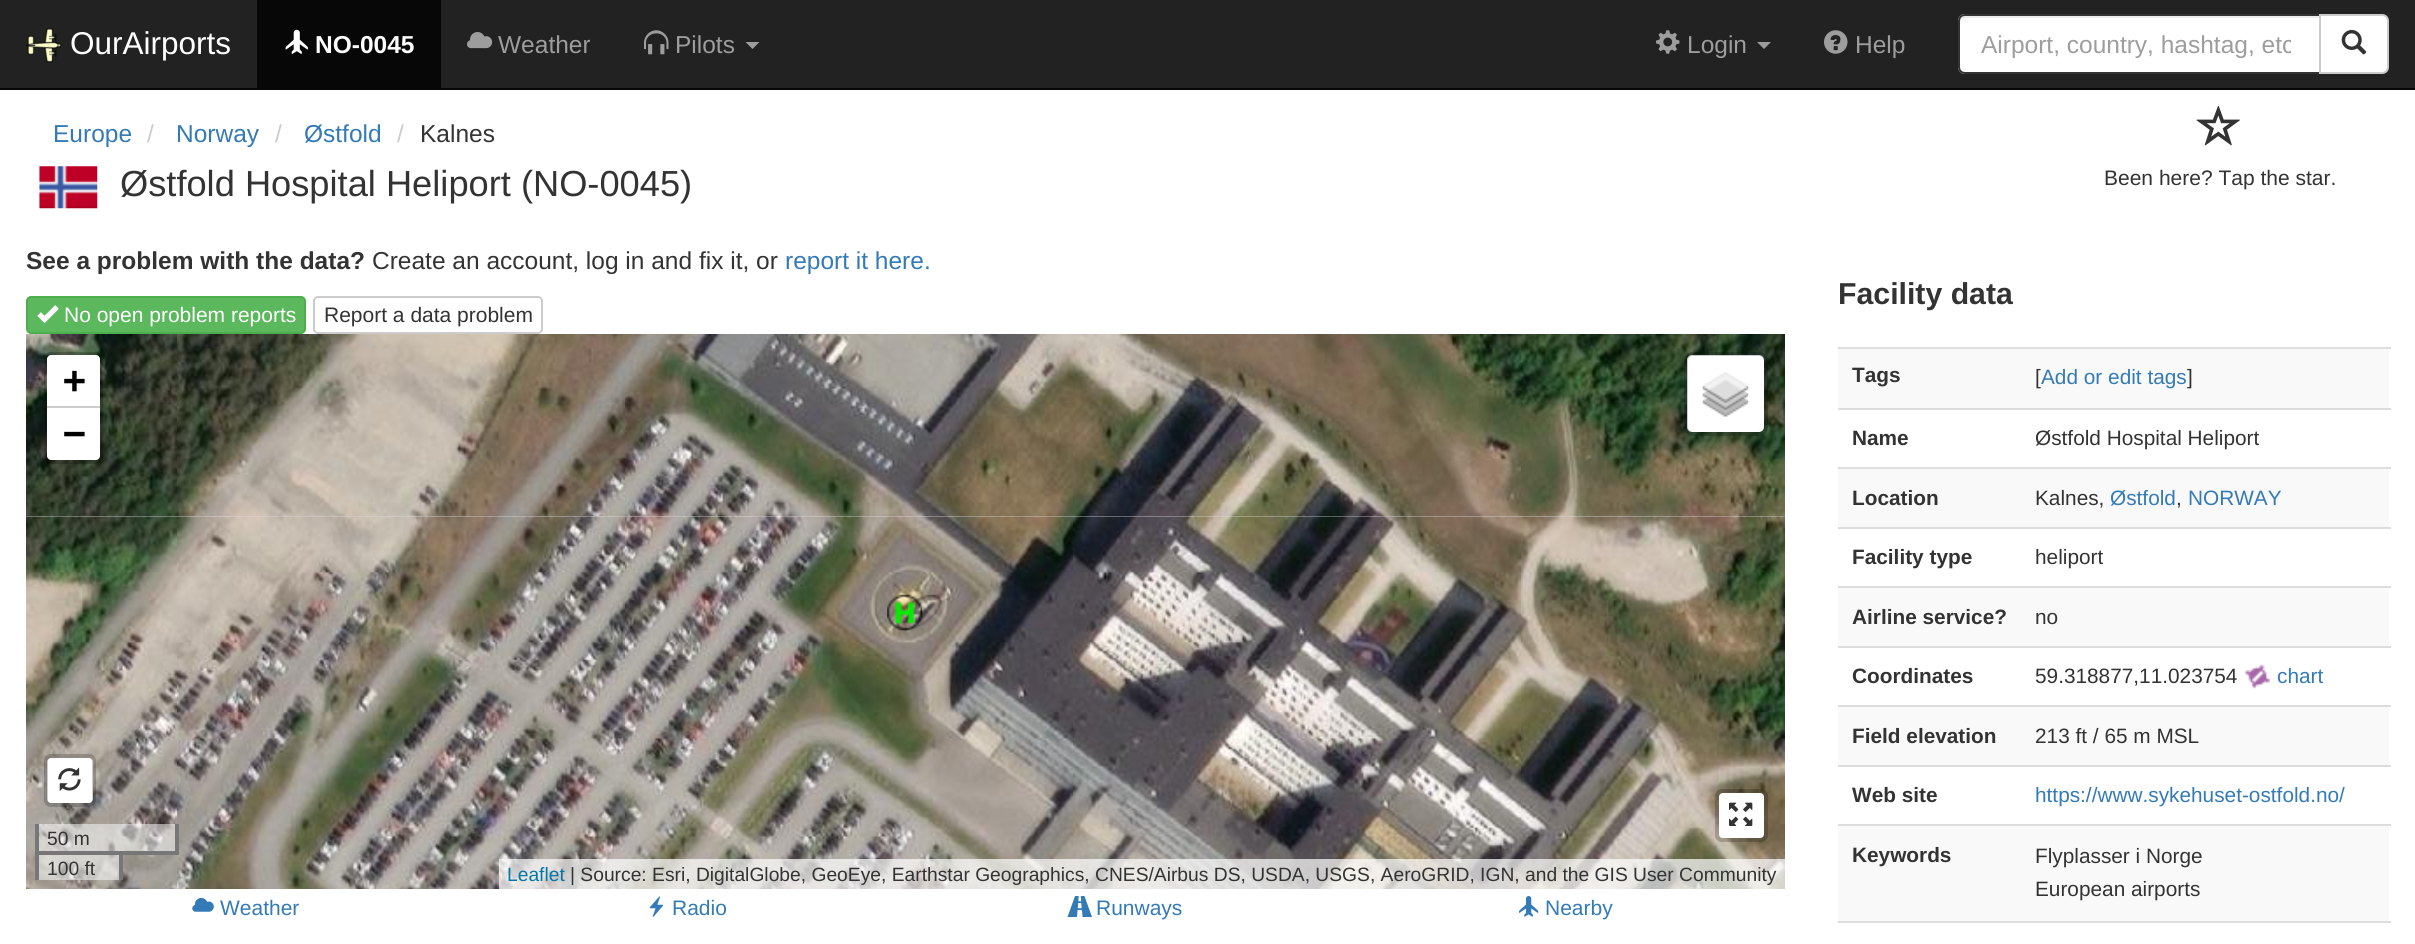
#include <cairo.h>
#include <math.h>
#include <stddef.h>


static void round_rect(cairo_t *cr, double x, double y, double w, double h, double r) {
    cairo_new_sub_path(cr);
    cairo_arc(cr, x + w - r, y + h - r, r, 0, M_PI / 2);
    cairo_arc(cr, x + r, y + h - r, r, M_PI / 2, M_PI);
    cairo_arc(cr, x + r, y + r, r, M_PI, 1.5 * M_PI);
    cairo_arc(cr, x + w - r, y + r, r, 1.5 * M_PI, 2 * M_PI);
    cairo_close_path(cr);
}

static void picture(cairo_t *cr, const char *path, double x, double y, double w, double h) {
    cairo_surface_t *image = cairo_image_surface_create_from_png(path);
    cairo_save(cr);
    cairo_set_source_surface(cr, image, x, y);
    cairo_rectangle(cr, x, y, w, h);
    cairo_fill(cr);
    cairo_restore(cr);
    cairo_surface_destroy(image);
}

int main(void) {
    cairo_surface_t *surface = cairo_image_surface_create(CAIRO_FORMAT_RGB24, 2415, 944);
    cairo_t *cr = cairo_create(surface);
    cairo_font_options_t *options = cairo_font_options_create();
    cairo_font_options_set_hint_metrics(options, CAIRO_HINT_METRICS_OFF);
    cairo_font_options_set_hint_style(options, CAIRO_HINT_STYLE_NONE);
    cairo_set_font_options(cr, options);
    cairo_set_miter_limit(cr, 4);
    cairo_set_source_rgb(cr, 1, 1, 1);
    cairo_paint(cr);
    cairo_set_source_rgb(cr, 0.133, 0.133, 0.133);
    cairo_rectangle(cr, 0, 0, 2415, 88);
    cairo_fill(cr);
    cairo_set_source_rgb(cr, 0.031, 0.031, 0.031);
    cairo_rectangle(cr, 0, 88, 2415, 2);
    cairo_fill(cr);
    picture(cr, "img1.png", 26, 28, 36, 35);
    cairo_select_font_face(cr, "Liberation Sans", CAIRO_FONT_SLANT_NORMAL, CAIRO_FONT_WEIGHT_NORMAL);
    cairo_set_font_size(cr, 31.5);
    cairo_set_source_rgb(cr, 1, 1, 1);
    cairo_move_to(cr, 70, 54);
    cairo_show_text(cr, "OurAirports");
    cairo_set_source_rgb(cr, 0.031, 0.031, 0.031);
    cairo_rectangle(cr, 257, 0, 184, 88);
    cairo_fill(cr);
    picture(cr, "img2.png", 285, 29, 23, 25);
    cairo_select_font_face(cr, "Liberation Sans", CAIRO_FONT_SLANT_NORMAL, CAIRO_FONT_WEIGHT_BOLD);
    cairo_set_font_size(cr, 24.5);
    cairo_set_source_rgb(cr, 1, 1, 1);
    cairo_move_to(cr, 315, 53);
    cairo_show_text(cr, "NO-0045");
    picture(cr, "img3.png", 467, 32, 26, 17);
    cairo_select_font_face(cr, "Liberation Sans", CAIRO_FONT_SLANT_NORMAL, CAIRO_FONT_WEIGHT_NORMAL);
    cairo_set_source_rgb(cr, 0.616, 0.616, 0.616);
    cairo_move_to(cr, 498, 53);
    cairo_show_text(cr, "Weather");
    picture(cr, "img4.png", 644, 30, 25, 25);
    cairo_move_to(cr, 675, 53);
    cairo_show_text(cr, "Pilots");
    cairo_new_path(cr);
    cairo_move_to(cr, 745.5, 42);
    cairo_line_to(cr, 759.5, 42);
    cairo_line_to(cr, 752.5, 49);
    cairo_close_path(cr);
    cairo_fill(cr);
    picture(cr, "img5.png", 1656, 30, 24, 24);
    cairo_move_to(cr, 1687, 53);
    cairo_show_text(cr, "Login");
    cairo_new_path(cr);
    cairo_move_to(cr, 1757, 42);
    cairo_line_to(cr, 1771, 42);
    cairo_line_to(cr, 1764, 49);
    cairo_close_path(cr);
    cairo_fill(cr);
    picture(cr, "img6.png", 1824, 30, 24, 24);
    cairo_move_to(cr, 1855, 53);
    cairo_show_text(cr, "Help");
    cairo_set_source_rgb(cr, 1, 1, 1);
    cairo_new_path(cr);
    cairo_move_to(cr, 1965, 14);
    cairo_line_to(cr, 2321, 14);
    cairo_line_to(cr, 2321, 74);
    cairo_line_to(cr, 1965, 74);
    cairo_curve_to(cr, 1961, 74, 1958, 71, 1958, 67);
    cairo_line_to(cr, 1958, 21);
    cairo_curve_to(cr, 1958, 17, 1961, 14, 1965, 14);
    cairo_close_path(cr);
    cairo_fill(cr);
    cairo_set_source_rgb(cr, 0.925, 0.925, 0.925);
    cairo_new_path(cr);
    cairo_move_to(cr, 1965, 18);
    cairo_line_to(cr, 2319, 18);
    cairo_line_to(cr, 2319, 16);
    cairo_line_to(cr, 1965, 16);
    cairo_curve_to(cr, 1961, 16, 1960, 20, 1960, 23);
    cairo_curve_to(cr, 1960, 20, 1962, 18, 1965, 18);
    cairo_close_path(cr);
    cairo_fill(cr);
    cairo_new_path(cr);
    cairo_move_to(cr, 1965, 15);
    cairo_line_to(cr, 2320, 15);
    cairo_line_to(cr, 2320, 73);
    cairo_line_to(cr, 1965, 73);
    cairo_curve_to(cr, 1961.5, 73, 1959, 70.5, 1959, 67);
    cairo_line_to(cr, 1959, 21);
    cairo_curve_to(cr, 1959, 17.5, 1961.5, 15, 1965, 15);
    cairo_close_path(cr);
    cairo_set_source_rgb(cr, 0.2, 0.2, 0.2);
    cairo_stroke(cr);
    cairo_save(cr);
    cairo_rectangle(cr, 1981, 30, 310, 28);
    cairo_clip(cr);
    cairo_set_source_rgb(cr, 0.616, 0.616, 0.616);
    cairo_move_to(cr, 1981, 53);
    cairo_show_text(cr, "Airport, country, hashtag, etc");
    cairo_restore(cr);
    cairo_set_source_rgb(cr, 1, 1, 1);
    cairo_new_path(cr);
    cairo_move_to(cr, 2320, 15);
    cairo_line_to(cr, 2382, 15);
    cairo_curve_to(cr, 2385.5, 15, 2388, 17.5, 2388, 21);
    cairo_line_to(cr, 2388, 67);
    cairo_curve_to(cr, 2388, 70.5, 2385.5, 73, 2382, 73);
    cairo_line_to(cr, 2320, 73);
    cairo_close_path(cr);
    cairo_fill_preserve(cr);
    cairo_set_source_rgb(cr, 0.8, 0.8, 0.8);
    cairo_stroke(cr);
    picture(cr, "img7.png", 2341, 29, 26, 26);
    cairo_set_source_rgb(cr, 0.2, 0.478, 0.718);
    cairo_move_to(cr, 53, 142);
    cairo_show_text(cr, "Europe");
    cairo_set_source_rgb(cr, 0.8, 0.8, 0.8);
    cairo_move_to(cr, 147, 142);
    cairo_show_text(cr, "/");
    cairo_set_source_rgb(cr, 0.2, 0.478, 0.718);
    cairo_move_to(cr, 176, 142);
    cairo_show_text(cr, "Norway");
    cairo_set_source_rgb(cr, 0.8, 0.8, 0.8);
    cairo_move_to(cr, 275, 142);
    cairo_show_text(cr, "/");
    cairo_set_source_rgb(cr, 0.2, 0.478, 0.718);
    cairo_move_to(cr, 304, 142);
    cairo_show_text(cr, "Østfold");
    cairo_set_source_rgb(cr, 0.8, 0.8, 0.8);
    cairo_move_to(cr, 397, 142);
    cairo_show_text(cr, "/");
    cairo_set_source_rgb(cr, 0.2, 0.2, 0.2);
    cairo_move_to(cr, 420, 142);
    cairo_show_text(cr, "Kalnes");
    picture(cr, "img8.png", 39, 166, 59, 43);
    cairo_set_font_size(cr, 36.25);
    cairo_move_to(cr, 120, 196);
    cairo_show_text(cr, "Østfold Hospital Heliport (NO-0045)");
    picture(cr, "img9.png", 2196, 106, 44, 40);
    cairo_set_font_size(cr, 21);
    cairo_move_to(cr, 2104, 185);
    cairo_show_text(cr, "Been here? Tap the star.");
    cairo_select_font_face(cr, "Liberation Sans", CAIRO_FONT_SLANT_NORMAL, CAIRO_FONT_WEIGHT_BOLD);
    cairo_set_font_size(cr, 24.5);
    cairo_move_to(cr, 26, 269);
    cairo_show_text(cr, "See a problem with the data?");
    cairo_select_font_face(cr, "Liberation Sans", CAIRO_FONT_SLANT_NORMAL, CAIRO_FONT_WEIGHT_NORMAL);
    cairo_move_to(cr, 372, 269);
    cairo_show_text(cr, "Create an account, log in and fix it, or");
    cairo_set_source_rgb(cr, 0.2, 0.478, 0.718);
    cairo_move_to(cr, 785, 269);
    cairo_show_text(cr, "report it here.");
    cairo_set_source_rgb(cr, 0.361, 0.722, 0.361);
    round_rect(cr, 27, 297, 278, 36, 4);
    cairo_fill_preserve(cr);
    cairo_set_source_rgb(cr, 0.298, 0.682, 0.298);
    cairo_stroke(cr);
    picture(cr, "img10.png", 37, 305, 22, 18);
    cairo_set_font_size(cr, 21);
    cairo_set_source_rgb(cr, 1, 1, 1);
    cairo_move_to(cr, 64, 322);
    cairo_show_text(cr, "No open problem reports");
    round_rect(cr, 314, 297, 228, 36, 4);
    cairo_set_source_rgb(cr, 0.8, 0.8, 0.8);
    cairo_stroke(cr);
    cairo_set_source_rgb(cr, 0.2, 0.2, 0.2);
    cairo_move_to(cr, 324, 322);
    cairo_show_text(cr, "Report a data problem");
    cairo_set_source_rgb(cr, 0.867, 0.867, 0.867);
    cairo_rectangle(cr, 26, 516, 1759, 1);
    cairo_fill(cr);
    picture(cr, "img11.png", 26, 334, 151, 182);
    picture(cr, "img12.png", 177, 334, 448, 182);
    picture(cr, "img13.png", 625, 334, 448, 182);
    picture(cr, "img14.png", 1073, 334, 448, 182);
    picture(cr, "img15.png", 1521, 334, 264, 182);
    picture(cr, "img16.png", 26, 516, 151, 373);
    picture(cr, "img17.png", 177, 516, 448, 373);
    picture(cr, "img18.png", 625, 516, 448, 373);
    picture(cr, "img19.png", 1073, 516, 448, 373);
    picture(cr, "img20.png", 1521, 516, 264, 373);
    picture(cr, "img22.png", 895, 594, 48, 37);
    picture(cr, "img21.png", 887, 594, 36, 37);
    round_rect(cr, 46, 354, 55, 108, 5);
    cairo_set_source_rgba(cr, 0, 0, 0, 0.2);
    cairo_set_line_width(cr, 4);
    cairo_stroke(cr);
    cairo_set_source_rgb(cr, 1, 1, 1);
    cairo_new_path(cr);
    cairo_move_to(cr, 51, 355);
    cairo_line_to(cr, 96, 355);
    cairo_curve_to(cr, 98, 355, 100, 357, 100, 359);
    cairo_line_to(cr, 100, 408);
    cairo_line_to(cr, 47, 408);
    cairo_line_to(cr, 47, 359);
    cairo_curve_to(cr, 47, 357, 49, 355, 51, 355);
    cairo_close_path(cr);
    cairo_fill(cr);
    cairo_set_source_rgb(cr, 0.8, 0.8, 0.8);
    cairo_rectangle(cr, 47, 406, 53, 2);
    cairo_fill(cr);
    cairo_select_font_face(cr, "DejaVu Sans Mono", CAIRO_FONT_SLANT_NORMAL, CAIRO_FONT_WEIGHT_BOLD);
    cairo_set_font_size(cr, 38);
    cairo_set_source_rgb(cr, 0, 0, 0);
    cairo_move_to(cr, 63, 393);
    cairo_show_text(cr, "+");
    cairo_set_source_rgb(cr, 1, 1, 1);
    cairo_new_path(cr);
    cairo_move_to(cr, 47, 408);
    cairo_line_to(cr, 100, 408);
    cairo_line_to(cr, 100, 456);
    cairo_curve_to(cr, 100, 458, 98, 460, 96, 460);
    cairo_line_to(cr, 51, 460);
    cairo_curve_to(cr, 49, 460, 47, 458, 47, 456);
    cairo_close_path(cr);
    cairo_fill(cr);
    cairo_set_source_rgb(cr, 0, 0, 0);
    cairo_move_to(cr, 63, 446);
    cairo_show_text(cr, "−");
    cairo_set_source_rgb(cr, 1, 1, 1);
    round_rect(cr, 1687, 355, 77, 77, 5);
    cairo_fill(cr);
    round_rect(cr, 1686, 354, 80, 80, 7);
    cairo_set_source_rgba(cr, 0, 0, 0, 0.2);
    cairo_stroke(cr);
    picture(cr, "img23.png", 1702, 372, 47, 45);
    cairo_set_source_rgb(cr, 1, 1, 1);
    round_rect(cr, 47, 758, 46, 45, 4);
    cairo_fill(cr);
    round_rect(cr, 46, 756, 48, 49, 5);
    cairo_set_source_rgba(cr, 0, 0, 0, 0.2);
    cairo_stroke(cr);
    picture(cr, "img24.png", 58, 767, 23, 24);
    cairo_set_source_rgba(cr, 1, 1, 1, 0.5);
    cairo_rectangle(cr, 39, 824, 136, 27);
    cairo_fill(cr);
    cairo_set_source_rgb(cr, 0.467, 0.467, 0.467);
    cairo_rectangle(cr, 175, 824, 4, 30);
    cairo_fill(cr);
    cairo_rectangle(cr, 123, 851, 56, 4);
    cairo_fill(cr);
    cairo_rectangle(cr, 35, 824, 4, 30);
    cairo_fill(cr);
    cairo_select_font_face(cr, "Liberation Sans", CAIRO_FONT_SLANT_NORMAL, CAIRO_FONT_WEIGHT_NORMAL);
    cairo_set_font_size(cr, 19.25);
    cairo_set_source_rgb(cr, 0.2, 0.2, 0.2);
    cairo_move_to(cr, 47, 845);
    cairo_show_text(cr, "50 m");
    cairo_set_source_rgba(cr, 1, 1, 1, 0.5);
    cairo_rectangle(cr, 39, 855, 80, 25);
    cairo_fill(cr);
    cairo_set_source_rgb(cr, 0.467, 0.467, 0.467);
    cairo_rectangle(cr, 35, 851, 88, 4);
    cairo_fill(cr);
    cairo_rectangle(cr, 119, 851, 4, 29);
    cairo_fill(cr);
    cairo_rectangle(cr, 35, 851, 4, 29);
    cairo_fill(cr);
    cairo_set_source_rgb(cr, 0.2, 0.2, 0.2);
    cairo_move_to(cr, 47, 875);
    cairo_show_text(cr, "100 ft");
    cairo_set_source_rgb(cr, 1, 1, 1);
    round_rect(cr, 1719, 793, 45, 45, 4);
    cairo_fill(cr);
    round_rect(cr, 1717, 791, 49, 49, 5);
    cairo_set_source_rgba(cr, 0, 0, 0, 0.2);
    cairo_stroke(cr);
    picture(cr, "img25.png", 1729, 802, 24, 24);
    cairo_set_source_rgba(cr, 1, 1, 1, 0.7);
    cairo_rectangle(cr, 499, 859, 1286, 30);
    cairo_fill(cr);
    cairo_set_source_rgb(cr, 0, 0.471, 0.659);
    cairo_move_to(cr, 507, 881);
    cairo_show_text(cr, "Leaflet");
    cairo_set_source_rgb(cr, 0.2, 0.2, 0.2);
    cairo_move_to(cr, 570, 881);
    cairo_show_text(cr, "| Source: Esri, DigitalGlobe, GeoEye, Earthstar Geographics, CNES/Airbus DS, USDA, USGS, AeroGRID, IGN, and the GIS User Community");
    picture(cr, "img26.png", 192, 897, 22, 15);
    cairo_set_font_size(cr, 21);
    cairo_set_source_rgb(cr, 0.2, 0.478, 0.718);
    cairo_move_to(cr, 220, 915);
    cairo_show_text(cr, "Weather");
    picture(cr, "img27.png", 649, 896, 15, 21);
    cairo_move_to(cr, 672, 915);
    cairo_show_text(cr, "Radio");
    picture(cr, "img28.png", 1067, 896, 25, 21);
    cairo_move_to(cr, 1096, 915);
    cairo_show_text(cr, "Runways");
    picture(cr, "img29.png", 1519, 896, 20, 21);
    cairo_move_to(cr, 1545, 915);
    cairo_show_text(cr, "Nearby");
    cairo_select_font_face(cr, "Liberation Sans", CAIRO_FONT_SLANT_NORMAL, CAIRO_FONT_WEIGHT_BOLD);
    cairo_set_font_size(cr, 30.25);
    cairo_set_source_rgb(cr, 0.2, 0.2, 0.2);
    cairo_move_to(cr, 1838, 304);
    cairo_show_text(cr, "Facility data");
    cairo_set_source_rgb(cr, 0.976, 0.976, 0.976);
    cairo_rectangle(cr, 1838, 349, 551, 59);
    cairo_fill(cr);
    cairo_set_font_size(cr, 20.8);
    cairo_set_source_rgb(cr, 0.2, 0.2, 0.2);
    cairo_move_to(cr, 1852, 382);
    cairo_show_text(cr, "Tags");
    cairo_set_source_rgb(cr, 0.867, 0.867, 0.867);
    cairo_rectangle(cr, 1838, 347, 553, 2);
    cairo_fill(cr);
    cairo_select_font_face(cr, "Liberation Sans", CAIRO_FONT_SLANT_NORMAL, CAIRO_FONT_WEIGHT_NORMAL);
    cairo_set_source_rgb(cr, 0.2, 0.2, 0.2);
    cairo_move_to(cr, 2035, 384);
    cairo_show_text(cr, "[");
    cairo_set_source_rgb(cr, 0.2, 0.478, 0.718);
    cairo_move_to(cr, 2041, 384);
    cairo_show_text(cr, "Add or edit tags");
    cairo_set_source_rgb(cr, 0.2, 0.2, 0.2);
    cairo_move_to(cr, 2187, 384);
    cairo_show_text(cr, "]");
    cairo_select_font_face(cr, "Liberation Sans", CAIRO_FONT_SLANT_NORMAL, CAIRO_FONT_WEIGHT_BOLD);
    cairo_move_to(cr, 1852, 445);
    cairo_show_text(cr, "Name");
    cairo_set_source_rgb(cr, 0.867, 0.867, 0.867);
    cairo_rectangle(cr, 1838, 408, 553, 2);
    cairo_fill(cr);
    cairo_select_font_face(cr, "Liberation Sans", CAIRO_FONT_SLANT_NORMAL, CAIRO_FONT_WEIGHT_NORMAL);
    cairo_set_source_rgb(cr, 0.2, 0.2, 0.2);
    cairo_move_to(cr, 2035, 445);
    cairo_show_text(cr, "Østfold Hospital Heliport");
    cairo_set_source_rgb(cr, 0.976, 0.976, 0.976);
    cairo_rectangle(cr, 1838, 469, 551, 58);
    cairo_fill(cr);
    cairo_select_font_face(cr, "Liberation Sans", CAIRO_FONT_SLANT_NORMAL, CAIRO_FONT_WEIGHT_BOLD);
    cairo_set_source_rgb(cr, 0.2, 0.2, 0.2);
    cairo_move_to(cr, 1852, 505);
    cairo_show_text(cr, "Location");
    cairo_set_source_rgb(cr, 0.867, 0.867, 0.867);
    cairo_rectangle(cr, 1838, 467, 553, 2);
    cairo_fill(cr);
    cairo_select_font_face(cr, "Liberation Sans", CAIRO_FONT_SLANT_NORMAL, CAIRO_FONT_WEIGHT_NORMAL);
    cairo_set_source_rgb(cr, 0.2, 0.2, 0.2);
    cairo_move_to(cr, 2035, 505);
    cairo_show_text(cr, "Kalnes,");
    cairo_set_source_rgb(cr, 0.2, 0.478, 0.718);
    cairo_move_to(cr, 2110, 505);
    cairo_show_text(cr, "Østfold");
    cairo_set_source_rgb(cr, 0.2, 0.2, 0.2);
    cairo_move_to(cr, 2176, 505);
    cairo_show_text(cr, ",");
    cairo_set_source_rgb(cr, 0.2, 0.478, 0.718);
    cairo_move_to(cr, 2188, 505);
    cairo_show_text(cr, "NORWAY");
    cairo_select_font_face(cr, "Liberation Sans", CAIRO_FONT_SLANT_NORMAL, CAIRO_FONT_WEIGHT_BOLD);
    cairo_set_source_rgb(cr, 0.2, 0.2, 0.2);
    cairo_move_to(cr, 1852, 564);
    cairo_show_text(cr, "Facility type");
    cairo_set_source_rgb(cr, 0.867, 0.867, 0.867);
    cairo_rectangle(cr, 1838, 527, 553, 2);
    cairo_fill(cr);
    cairo_select_font_face(cr, "Liberation Sans", CAIRO_FONT_SLANT_NORMAL, CAIRO_FONT_WEIGHT_NORMAL);
    cairo_set_source_rgb(cr, 0.2, 0.2, 0.2);
    cairo_move_to(cr, 2035, 564);
    cairo_show_text(cr, "heliport");
    cairo_set_source_rgb(cr, 0.976, 0.976, 0.976);
    cairo_rectangle(cr, 1838, 588, 551, 58);
    cairo_fill(cr);
    cairo_select_font_face(cr, "Liberation Sans", CAIRO_FONT_SLANT_NORMAL, CAIRO_FONT_WEIGHT_BOLD);
    cairo_set_source_rgb(cr, 0.2, 0.2, 0.2);
    cairo_move_to(cr, 1852, 624);
    cairo_show_text(cr, "Airline service?");
    cairo_set_source_rgb(cr, 0.867, 0.867, 0.867);
    cairo_rectangle(cr, 1838, 586, 553, 2);
    cairo_fill(cr);
    cairo_select_font_face(cr, "Liberation Sans", CAIRO_FONT_SLANT_NORMAL, CAIRO_FONT_WEIGHT_NORMAL);
    cairo_set_source_rgb(cr, 0.2, 0.2, 0.2);
    cairo_move_to(cr, 2035, 624);
    cairo_show_text(cr, "no");
    cairo_select_font_face(cr, "Liberation Sans", CAIRO_FONT_SLANT_NORMAL, CAIRO_FONT_WEIGHT_BOLD);
    cairo_move_to(cr, 1852, 683);
    cairo_show_text(cr, "Coordinates");
    cairo_set_source_rgb(cr, 0.867, 0.867, 0.867);
    cairo_rectangle(cr, 1838, 646, 553, 2);
    cairo_fill(cr);
    cairo_select_font_face(cr, "Liberation Sans", CAIRO_FONT_SLANT_NORMAL, CAIRO_FONT_WEIGHT_NORMAL);
    cairo_set_source_rgb(cr, 0.2, 0.2, 0.2);
    cairo_move_to(cr, 2035, 683);
    cairo_show_text(cr, "59.318877,11.023754");
    picture(cr, "img30.png", 2244, 664, 27, 25);
    cairo_set_source_rgb(cr, 0.2, 0.478, 0.718);
    cairo_move_to(cr, 2277, 683);
    cairo_show_text(cr, "chart");
    cairo_set_source_rgb(cr, 0.976, 0.976, 0.976);
    cairo_rectangle(cr, 1838, 707, 551, 58);
    cairo_fill(cr);
    cairo_select_font_face(cr, "Liberation Sans", CAIRO_FONT_SLANT_NORMAL, CAIRO_FONT_WEIGHT_BOLD);
    cairo_set_source_rgb(cr, 0.2, 0.2, 0.2);
    cairo_move_to(cr, 1852, 743);
    cairo_show_text(cr, "Field elevation");
    cairo_set_source_rgb(cr, 0.867, 0.867, 0.867);
    cairo_rectangle(cr, 1838, 705, 553, 2);
    cairo_fill(cr);
    cairo_select_font_face(cr, "Liberation Sans", CAIRO_FONT_SLANT_NORMAL, CAIRO_FONT_WEIGHT_NORMAL);
    cairo_set_source_rgb(cr, 0.2, 0.2, 0.2);
    cairo_move_to(cr, 2035, 743);
    cairo_show_text(cr, "213 ft / 65 m MSL");
    cairo_select_font_face(cr, "Liberation Sans", CAIRO_FONT_SLANT_NORMAL, CAIRO_FONT_WEIGHT_BOLD);
    cairo_move_to(cr, 1852, 802);
    cairo_show_text(cr, "Web site");
    cairo_set_source_rgb(cr, 0.867, 0.867, 0.867);
    cairo_rectangle(cr, 1838, 765, 553, 2);
    cairo_fill(cr);
    cairo_select_font_face(cr, "Liberation Sans", CAIRO_FONT_SLANT_NORMAL, CAIRO_FONT_WEIGHT_NORMAL);
    cairo_set_source_rgb(cr, 0.2, 0.478, 0.718);
    cairo_move_to(cr, 2035, 802);
    cairo_show_text(cr, "https://www.sykehuset-ostfold.no/");
    cairo_set_source_rgb(cr, 0.976, 0.976, 0.976);
    cairo_rectangle(cr, 1838, 826, 551, 95);
    cairo_fill(cr);
    cairo_select_font_face(cr, "Liberation Sans", CAIRO_FONT_SLANT_NORMAL, CAIRO_FONT_WEIGHT_BOLD);
    cairo_set_source_rgb(cr, 0.2, 0.2, 0.2);
    cairo_move_to(cr, 1852, 862);
    cairo_show_text(cr, "Keywords");
    cairo_set_source_rgb(cr, 0.867, 0.867, 0.867);
    cairo_rectangle(cr, 1838, 824, 553, 2);
    cairo_fill(cr);
    cairo_select_font_face(cr, "Liberation Sans", CAIRO_FONT_SLANT_NORMAL, CAIRO_FONT_WEIGHT_NORMAL);
    cairo_set_source_rgb(cr, 0.2, 0.2, 0.2);
    cairo_move_to(cr, 2035, 863);
    cairo_show_text(cr, "Flyplasser i Norge");
    cairo_move_to(cr, 2035, 896);
    cairo_show_text(cr, "European airports");
    cairo_set_source_rgb(cr, 0.867, 0.867, 0.867);
    cairo_rectangle(cr, 1838, 921, 553, 2);
    cairo_fill(cr);
    cairo_surface_write_to_png(surface, "page.png");
    cairo_font_options_destroy(options);
    cairo_destroy(cr);
    cairo_surface_destroy(surface);
    return 0;
}
